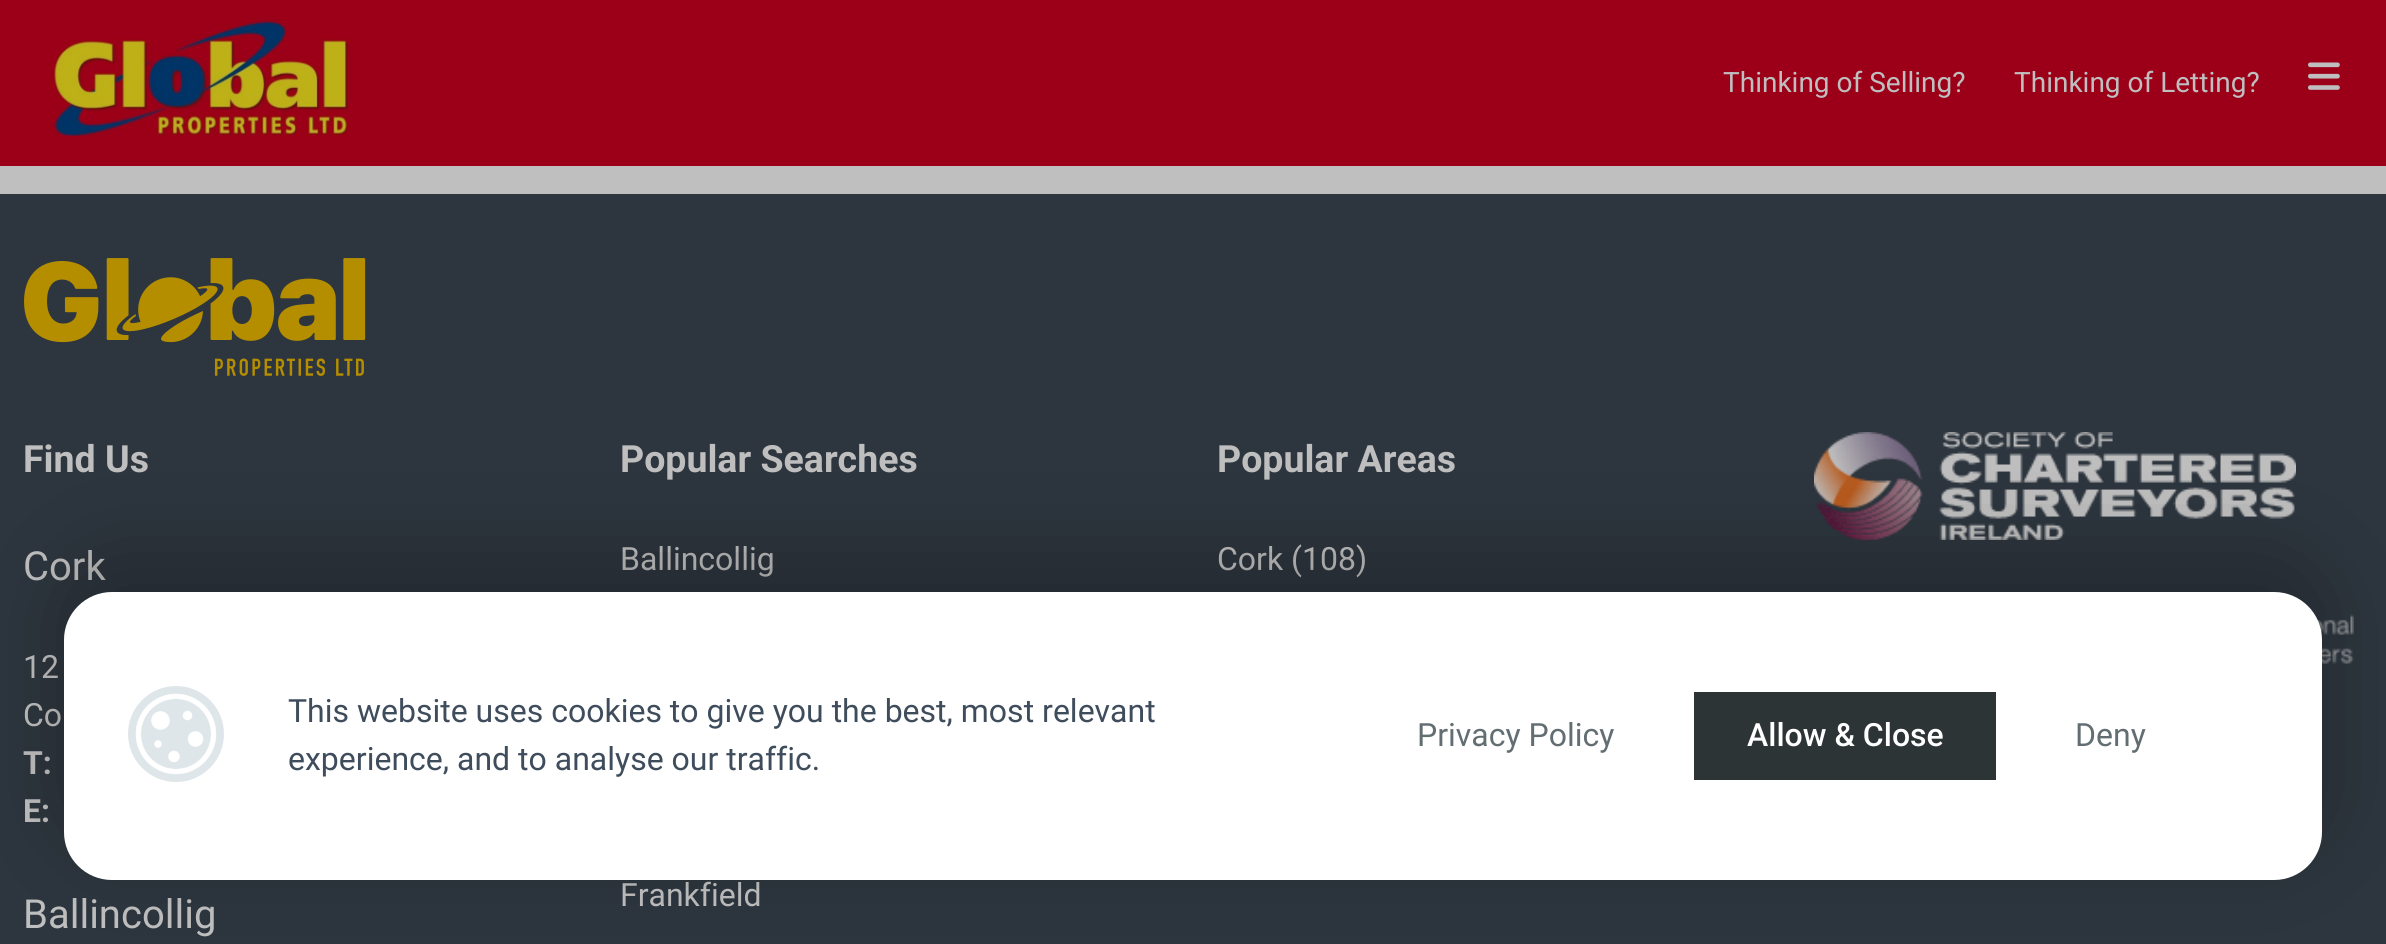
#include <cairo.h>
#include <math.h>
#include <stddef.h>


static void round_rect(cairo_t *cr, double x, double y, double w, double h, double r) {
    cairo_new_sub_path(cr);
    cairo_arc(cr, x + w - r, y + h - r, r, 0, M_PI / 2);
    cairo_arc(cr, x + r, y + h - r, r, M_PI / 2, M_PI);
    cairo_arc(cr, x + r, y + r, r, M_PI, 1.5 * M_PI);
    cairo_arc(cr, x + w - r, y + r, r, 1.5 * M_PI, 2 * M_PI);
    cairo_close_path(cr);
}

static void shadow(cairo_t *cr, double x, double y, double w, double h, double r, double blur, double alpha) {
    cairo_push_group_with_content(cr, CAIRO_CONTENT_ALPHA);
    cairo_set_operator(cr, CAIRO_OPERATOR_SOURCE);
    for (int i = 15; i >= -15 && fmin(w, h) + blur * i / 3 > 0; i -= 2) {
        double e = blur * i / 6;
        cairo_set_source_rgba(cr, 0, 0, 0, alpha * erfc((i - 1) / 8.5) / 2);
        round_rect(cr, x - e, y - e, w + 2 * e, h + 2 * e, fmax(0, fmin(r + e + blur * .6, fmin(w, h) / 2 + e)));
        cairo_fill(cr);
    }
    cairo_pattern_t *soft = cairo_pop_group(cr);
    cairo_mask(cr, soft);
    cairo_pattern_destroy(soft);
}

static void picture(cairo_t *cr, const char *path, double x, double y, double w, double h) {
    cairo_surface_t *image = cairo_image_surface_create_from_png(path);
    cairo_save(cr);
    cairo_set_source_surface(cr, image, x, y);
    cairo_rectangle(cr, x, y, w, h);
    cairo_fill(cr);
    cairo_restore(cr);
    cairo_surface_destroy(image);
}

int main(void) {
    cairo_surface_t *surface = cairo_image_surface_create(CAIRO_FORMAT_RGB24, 2386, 944);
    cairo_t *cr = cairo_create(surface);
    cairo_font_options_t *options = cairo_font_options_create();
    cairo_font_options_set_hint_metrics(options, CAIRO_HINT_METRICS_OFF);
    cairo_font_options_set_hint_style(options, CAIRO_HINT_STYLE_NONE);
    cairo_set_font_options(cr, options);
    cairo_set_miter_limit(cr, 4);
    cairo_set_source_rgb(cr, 1, 1, 1);
    cairo_paint(cr);
    cairo_set_source_rgb(cr, 0.816, 0, 0.125);
    cairo_rectangle(cr, 0, 0, 2386, 166);
    cairo_fill(cr);
    picture(cr, "img1.png", 48, 16, 303, 120);
    cairo_select_font_face(cr, "Roboto", CAIRO_FONT_SLANT_NORMAL, CAIRO_FONT_WEIGHT_NORMAL);
    cairo_set_font_size(cr, 28);
    cairo_set_source_rgb(cr, 1, 1, 1);
    cairo_move_to(cr, 1723, 92);
    cairo_show_text(cr, "Thinking of Selling?");
    cairo_move_to(cr, 2014, 92);
    cairo_show_text(cr, "Thinking of Letting?");
    picture(cr, "img2.png", 2308, 62, 32, 28);
    cairo_set_source_rgb(cr, 0.235, 0.278, 0.325);
    cairo_rectangle(cr, 0, 194, 2386, 750);
    cairo_fill(cr);
    picture(cr, "img3.png", 24, 258, 342, 118);
    cairo_select_font_face(cr, "Roboto", CAIRO_FONT_SLANT_NORMAL, CAIRO_FONT_WEIGHT_BOLD);
    cairo_set_font_size(cr, 37.5);
    cairo_set_source_rgb(cr, 1, 1, 1);
    cairo_move_to(cr, 23, 472);
    cairo_show_text(cr, "Find Us");
    cairo_select_font_face(cr, "Roboto", CAIRO_FONT_SLANT_NORMAL, CAIRO_FONT_WEIGHT_NORMAL);
    cairo_set_font_size(cr, 40);
    cairo_move_to(cr, 23, 580);
    cairo_show_text(cr, "Cork");
    cairo_set_font_size(cr, 32);
    cairo_move_to(cr, 23, 678);
    cairo_show_text(cr, "12");
    cairo_move_to(cr, 23, 726);
    cairo_show_text(cr, "Co");
    cairo_select_font_face(cr, "Roboto", CAIRO_FONT_SLANT_NORMAL, CAIRO_FONT_WEIGHT_BOLD);
    cairo_move_to(cr, 23, 774);
    cairo_show_text(cr, "T:");
    cairo_move_to(cr, 23, 822);
    cairo_show_text(cr, "E:");
    cairo_select_font_face(cr, "Roboto", CAIRO_FONT_SLANT_NORMAL, CAIRO_FONT_WEIGHT_NORMAL);
    cairo_set_font_size(cr, 40);
    cairo_move_to(cr, 23, 928);
    cairo_show_text(cr, "Ballincollig");
    cairo_select_font_face(cr, "Roboto", CAIRO_FONT_SLANT_NORMAL, CAIRO_FONT_WEIGHT_BOLD);
    cairo_set_font_size(cr, 37.5);
    cairo_move_to(cr, 620, 472);
    cairo_show_text(cr, "Popular Searches");
    cairo_select_font_face(cr, "Roboto", CAIRO_FONT_SLANT_NORMAL, CAIRO_FONT_WEIGHT_NORMAL);
    cairo_set_font_size(cr, 32);
    cairo_move_to(cr, 620, 570);
    cairo_show_text(cr, "Ballincollig");
    cairo_move_to(cr, 620, 906);
    cairo_show_text(cr, "Frankfield");
    cairo_select_font_face(cr, "Roboto", CAIRO_FONT_SLANT_NORMAL, CAIRO_FONT_WEIGHT_BOLD);
    cairo_set_font_size(cr, 37.5);
    cairo_move_to(cr, 1217, 472);
    cairo_show_text(cr, "Popular Areas");
    cairo_select_font_face(cr, "Roboto", CAIRO_FONT_SLANT_NORMAL, CAIRO_FONT_WEIGHT_NORMAL);
    cairo_set_font_size(cr, 32);
    cairo_move_to(cr, 1217, 570);
    cairo_show_text(cr, "Cork (108)");
    picture(cr, "img4.png", 1814, 432, 482, 108);
    picture(cr, "img5.png", 2317, 614, 37, 50);
    round_rect(cr, -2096, -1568, 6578, 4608, 2208);
    cairo_set_source_rgba(cr, 0, 0, 0, 0.25);
    cairo_set_line_width(cr, 4320);
    cairo_stroke(cr);
    cairo_set_source_rgb(cr, 0, 0, 0);
    shadow(cr, 64, 560, 2258, 288, 48, 48, 0.25);
    cairo_set_source_rgb(cr, 1, 1, 1);
    round_rect(cr, 64, 592, 2258, 288, 48);
    cairo_fill(cr);
    cairo_set_source_rgb(cr, 0.875, 0.902, 0.914);
    cairo_arc(cr, 176, 734, 48, 0, 2 * M_PI);
    cairo_fill(cr);
    picture(cr, "img6.png", 135, 693, 82, 82);
    cairo_set_source_rgb(cr, 0.243, 0.298, 0.361);
    cairo_move_to(cr, 288, 722);
    cairo_show_text(cr, "This website uses cookies to give you the best, most relevant");
    cairo_move_to(cr, 288, 770);
    cairo_show_text(cr, "experience, and to analyse our traffic.");
    cairo_set_source_rgb(cr, 0.388, 0.431, 0.447);
    cairo_move_to(cr, 1417, 746);
    cairo_show_text(cr, "Privacy Policy");
    cairo_set_source_rgb(cr, 0.176, 0.204, 0.212);
    cairo_rectangle(cr, 1694, 692, 302, 88);
    cairo_fill(cr);
    cairo_select_font_face(cr, "Roboto Medium", CAIRO_FONT_SLANT_NORMAL, CAIRO_FONT_WEIGHT_NORMAL);
    cairo_set_source_rgb(cr, 1, 1, 1);
    cairo_move_to(cr, 1747, 746);
    cairo_show_text(cr, "Allow & Close");
    cairo_select_font_face(cr, "Roboto", CAIRO_FONT_SLANT_NORMAL, CAIRO_FONT_WEIGHT_NORMAL);
    cairo_set_source_rgb(cr, 0.388, 0.431, 0.447);
    cairo_move_to(cr, 2075, 746);
    cairo_show_text(cr, "Deny");
    cairo_surface_write_to_png(surface, "page.png");
    cairo_font_options_destroy(options);
    cairo_destroy(cr);
    cairo_surface_destroy(surface);
    return 0;
}
